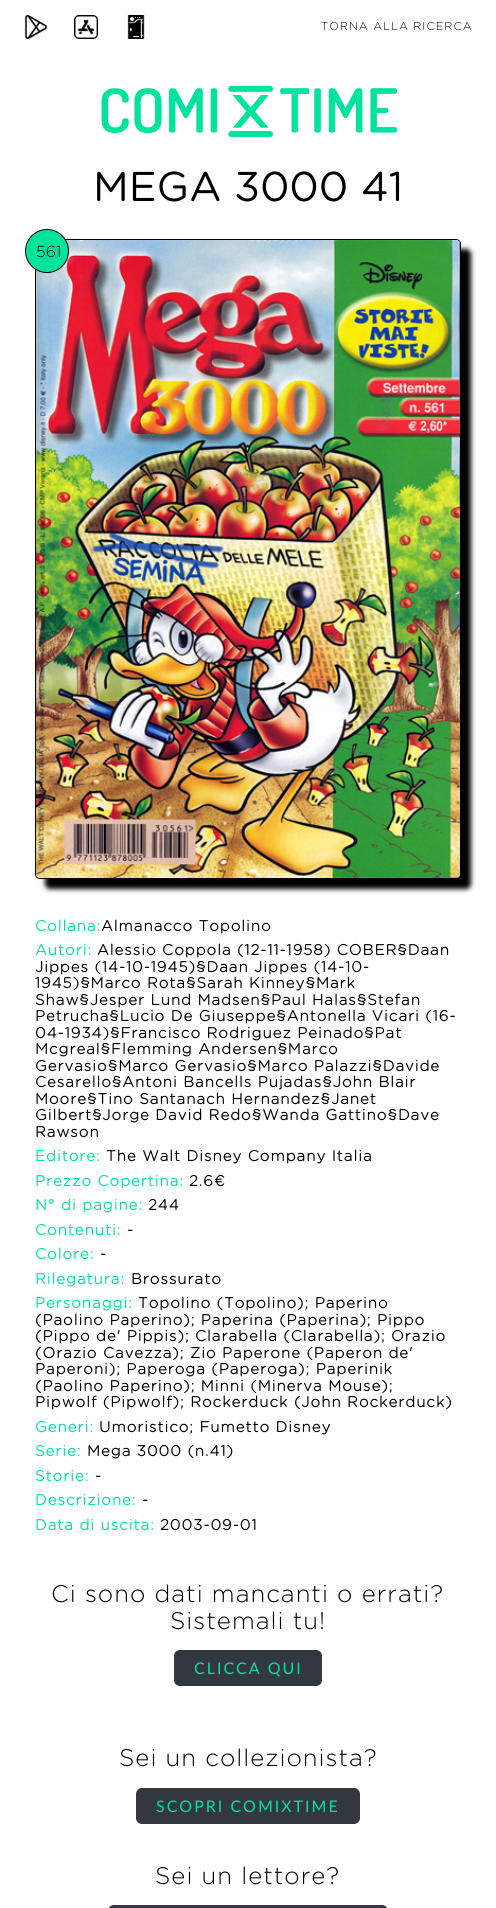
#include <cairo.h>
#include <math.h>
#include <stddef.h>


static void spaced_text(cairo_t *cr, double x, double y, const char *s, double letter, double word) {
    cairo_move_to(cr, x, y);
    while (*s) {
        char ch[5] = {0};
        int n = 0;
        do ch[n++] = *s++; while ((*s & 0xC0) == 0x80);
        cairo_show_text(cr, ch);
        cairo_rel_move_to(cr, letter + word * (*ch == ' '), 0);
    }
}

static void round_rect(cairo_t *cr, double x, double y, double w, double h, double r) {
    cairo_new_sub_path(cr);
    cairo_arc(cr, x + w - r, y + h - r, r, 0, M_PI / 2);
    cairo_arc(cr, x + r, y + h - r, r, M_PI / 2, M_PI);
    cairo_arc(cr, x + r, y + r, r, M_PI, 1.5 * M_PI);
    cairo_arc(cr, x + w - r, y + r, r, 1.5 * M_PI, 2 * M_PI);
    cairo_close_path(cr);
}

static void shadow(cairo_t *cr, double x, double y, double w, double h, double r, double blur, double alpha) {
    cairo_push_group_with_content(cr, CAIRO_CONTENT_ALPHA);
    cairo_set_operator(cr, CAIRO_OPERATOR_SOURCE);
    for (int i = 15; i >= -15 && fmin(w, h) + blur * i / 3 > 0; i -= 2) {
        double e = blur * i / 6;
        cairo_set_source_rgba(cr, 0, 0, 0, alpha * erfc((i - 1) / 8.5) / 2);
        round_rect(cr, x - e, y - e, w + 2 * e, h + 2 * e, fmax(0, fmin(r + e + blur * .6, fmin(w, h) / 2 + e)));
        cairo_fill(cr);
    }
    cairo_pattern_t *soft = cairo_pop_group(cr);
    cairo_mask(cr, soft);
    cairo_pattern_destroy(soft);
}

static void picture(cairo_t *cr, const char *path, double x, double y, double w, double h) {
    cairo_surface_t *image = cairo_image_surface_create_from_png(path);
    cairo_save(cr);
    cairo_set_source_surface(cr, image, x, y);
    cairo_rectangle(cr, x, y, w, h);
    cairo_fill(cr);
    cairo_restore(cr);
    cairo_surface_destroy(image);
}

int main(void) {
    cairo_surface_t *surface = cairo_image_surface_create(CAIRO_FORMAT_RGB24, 496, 1908);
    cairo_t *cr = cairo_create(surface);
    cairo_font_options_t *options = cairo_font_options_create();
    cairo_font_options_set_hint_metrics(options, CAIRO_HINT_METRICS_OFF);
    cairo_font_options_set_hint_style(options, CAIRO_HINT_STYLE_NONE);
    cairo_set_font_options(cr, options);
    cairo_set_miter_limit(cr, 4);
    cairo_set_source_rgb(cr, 1, 1, 1);
    cairo_paint(cr);
    picture(cr, "img1.png", 24, 15, 24, 24);
    picture(cr, "img2.png", 74, 15, 24, 24);
    picture(cr, "img3.png", 127, 15, 18, 24);
    cairo_select_font_face(cr, "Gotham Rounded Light", CAIRO_FONT_SLANT_NORMAL, CAIRO_FONT_WEIGHT_NORMAL);
    cairo_set_font_size(cr, 11.25);
    cairo_set_source_rgb(cr, 0, 0, 0);
    spaced_text(cr, 321, 30, "TORNA ALLA RICERCA", 1, 0);
    picture(cr, "img4.png", 101, 85, 297, 53);
    cairo_select_font_face(cr, "Gotham Rounded", CAIRO_FONT_SLANT_NORMAL, CAIRO_FONT_WEIGHT_BOLD);
    cairo_set_font_size(cr, 40);
    spaced_text(cr, 93, 201, "MEGA 3000 41", 1, 0);
    cairo_set_source_rgb(cr, 0, 0, 0);
    shadow(cr, 45, 249, 426, 640, 5, 2.5, 1);
    round_rect(cr, 35.5, 239.5, 425, 639, 4.5);
    cairo_set_source_rgb(cr, 0, 0, 0);
    cairo_set_line_width(cr, 1);
    cairo_stroke(cr);
    picture(cr, "img5.png", 36, 240, 424, 638);
    cairo_set_source_rgb(cr, 0, 0.89, 0.62);
    cairo_arc(cr, 47, 251, 21.5, 0, 2 * M_PI);
    cairo_fill_preserve(cr);
    cairo_set_source_rgb(cr, 0, 0, 0);
    cairo_stroke(cr);
    cairo_select_font_face(cr, "Gotham Rounded Light", CAIRO_FONT_SLANT_NORMAL, CAIRO_FONT_WEIGHT_NORMAL);
    cairo_set_font_size(cr, 16);
    cairo_move_to(cr, 36, 257);
    cairo_show_text(cr, "561");
    cairo_select_font_face(cr, "Gotham Rounded", CAIRO_FONT_SLANT_NORMAL, CAIRO_FONT_WEIGHT_BOLD);
    cairo_set_font_size(cr, 15);
    cairo_set_source_rgb(cr, 0, 0.89, 0.62);
    spaced_text(cr, 35, 931, "Collana:", 1, 0);
    cairo_set_source_rgb(cr, 0, 0, 0);
    spaced_text(cr, 101, 931, "Almanacco Topolino", 1, 0);
    cairo_set_source_rgb(cr, 0, 0.89, 0.62);
    spaced_text(cr, 35, 955, "Autori:", 1, 0);
    cairo_set_source_rgb(cr, 0, 0, 0);
    spaced_text(cr, 97, 955, "Alessio Coppola (12-11-1958) COBER§Daan", 1, 0);
    spaced_text(cr, 35, 972, "Jippes (14-10-1945)§Daan Jippes (14-10-", 1, 0);
    spaced_text(cr, 35, 988, "1945)§Marco Rota§Sarah Kinney§Mark", 1, 0);
    spaced_text(cr, 35, 1005, "Shaw§Jesper Lund Madsen§Paul Halas§Stefan", 1, 0);
    spaced_text(cr, 35, 1021, "Petrucha§Lucio De Giuseppe§Antonella Vicari (16-", 1, 0);
    spaced_text(cr, 35, 1038, "04-1934)§Francisco Rodriguez Peinado§Pat", 1, 0);
    spaced_text(cr, 35, 1054, "Mcgreal§Flemming Andersen§Marco", 1, 0);
    spaced_text(cr, 35, 1071, "Gervasio§Marco Gervasio§Marco Palazzi§Davide", 1, 0);
    spaced_text(cr, 35, 1087, "Cesarello§Antoni Bancells Pujadas§John Blair", 1, 0);
    spaced_text(cr, 35, 1104, "Moore§Tino Santanach Hernandez§Janet", 1, 0);
    spaced_text(cr, 35, 1120, "Gilbert§Jorge David Redo§Wanda Gattino§Dave", 1, 0);
    spaced_text(cr, 35, 1137, "Rawson", 1, 0);
    cairo_set_source_rgb(cr, 0, 0.89, 0.62);
    spaced_text(cr, 35, 1161, "Editore:", 1, 0);
    cairo_set_source_rgb(cr, 0, 0, 0);
    spaced_text(cr, 106, 1161, "The Walt Disney Company Italia", 1, 0);
    cairo_set_source_rgb(cr, 0, 0.89, 0.62);
    spaced_text(cr, 35, 1186, "Prezzo Copertina:", 1, 0);
    cairo_set_source_rgb(cr, 0, 0, 0);
    spaced_text(cr, 189, 1186, "2.6€", 1, 0);
    cairo_set_source_rgb(cr, 0, 0.89, 0.62);
    spaced_text(cr, 35, 1210, "N° di pagine:", 1, 0);
    cairo_set_source_rgb(cr, 0, 0, 0);
    spaced_text(cr, 148, 1210, "244", 1, 0);
    cairo_set_source_rgb(cr, 0, 0.89, 0.62);
    spaced_text(cr, 35, 1235, "Contenuti:", 1, 0);
    cairo_set_source_rgb(cr, 0, 0, 0);
    spaced_text(cr, 127, 1235, "-", 1, 0);
    cairo_set_source_rgb(cr, 0, 0.89, 0.62);
    spaced_text(cr, 35, 1259, "Colore:", 1, 0);
    cairo_set_source_rgb(cr, 0, 0, 0);
    spaced_text(cr, 100, 1259, "-", 1, 0);
    cairo_set_source_rgb(cr, 0, 0.89, 0.62);
    spaced_text(cr, 35, 1284, "Rilegatura:", 1, 0);
    cairo_set_source_rgb(cr, 0, 0, 0);
    spaced_text(cr, 131, 1284, "Brossurato", 1, 0);
    cairo_set_source_rgb(cr, 0, 0.89, 0.62);
    spaced_text(cr, 35, 1308, "Personaggi:", 1, 0);
    cairo_set_source_rgb(cr, 0, 0, 0);
    spaced_text(cr, 138, 1308, "Topolino (Topolino); Paperino", 1, 0);
    spaced_text(cr, 35, 1325, "(Paolino Paperino); Paperina (Paperina); Pippo", 1, 0);
    spaced_text(cr, 35, 1341, "(Pippo de' Pippis); Clarabella (Clarabella); Orazio", 1, 0);
    spaced_text(cr, 35, 1358, "(Orazio Cavezza); Zio Paperone (Paperon de'", 1, 0);
    spaced_text(cr, 35, 1374, "Paperoni); Paperoga (Paperoga); Paperinik", 1, 0);
    spaced_text(cr, 35, 1391, "(Paolino Paperino); Minni (Minerva Mouse);", 1, 0);
    spaced_text(cr, 35, 1407, "Pipwolf (Pipwolf); Rockerduck (John Rockerduck)", 1, 0);
    cairo_set_source_rgb(cr, 0, 0.89, 0.62);
    spaced_text(cr, 35, 1432, "Generi:", 1, 0);
    cairo_set_source_rgb(cr, 0, 0, 0);
    spaced_text(cr, 99, 1432, "Umoristico; Fumetto Disney", 1, 0);
    cairo_set_source_rgb(cr, 0, 0.89, 0.62);
    spaced_text(cr, 35, 1456, "Serie:", 1, 0);
    cairo_set_source_rgb(cr, 0, 0, 0);
    spaced_text(cr, 87, 1456, "Mega 3000 (n.41)", 1, 0);
    cairo_set_source_rgb(cr, 0, 0.89, 0.62);
    spaced_text(cr, 35, 1481, "Storie:", 1, 0);
    cairo_set_source_rgb(cr, 0, 0, 0);
    spaced_text(cr, 95, 1481, "-", 1, 0);
    cairo_set_source_rgb(cr, 0, 0.89, 0.62);
    spaced_text(cr, 35, 1505, "Descrizione:", 1, 0);
    cairo_set_source_rgb(cr, 0, 0, 0);
    spaced_text(cr, 142, 1505, "-", 1, 0);
    cairo_set_source_rgb(cr, 0, 0.89, 0.62);
    spaced_text(cr, 35, 1530, "Data di uscita:", 1, 0);
    cairo_set_source_rgb(cr, 0, 0, 0);
    spaced_text(cr, 160, 1530, "2003-09-01", 1, 0);
    cairo_select_font_face(cr, "Gotham Rounded Light", CAIRO_FONT_SLANT_NORMAL, CAIRO_FONT_WEIGHT_NORMAL);
    cairo_set_font_size(cr, 24);
    spaced_text(cr, 51, 1602, "Ci sono dati mancanti o errati?", 1, 0);
    spaced_text(cr, 170, 1629, "Sistemali tu!", 1, 0);
    cairo_set_source_rgb(cr, 0.2, 0.216, 0.247);
    round_rect(cr, 174, 1650, 148, 36, 6);
    cairo_fill(cr);
    cairo_select_font_face(cr, "Lato", CAIRO_FONT_SLANT_NORMAL, CAIRO_FONT_WEIGHT_NORMAL);
    cairo_set_font_size(cr, 16);
    cairo_set_source_rgb(cr, 0, 0.89, 0.62);
    spaced_text(cr, 194, 1674, "CLICCA QUI", 2, 0);
    cairo_select_font_face(cr, "Gotham Rounded Light", CAIRO_FONT_SLANT_NORMAL, CAIRO_FONT_WEIGHT_NORMAL);
    cairo_set_font_size(cr, 24);
    cairo_set_source_rgb(cr, 0, 0, 0);
    spaced_text(cr, 119, 1766, "Sei un collezionista?", 1, 0);
    cairo_set_source_rgb(cr, 0.2, 0.216, 0.247);
    round_rect(cr, 136, 1788, 224, 36, 6);
    cairo_fill(cr);
    cairo_select_font_face(cr, "Lato", CAIRO_FONT_SLANT_NORMAL, CAIRO_FONT_WEIGHT_NORMAL);
    cairo_set_font_size(cr, 16);
    cairo_set_source_rgb(cr, 0, 0.89, 0.62);
    spaced_text(cr, 156, 1812, "SCOPRI COMIXTIME", 2, 0);
    cairo_select_font_face(cr, "Gotham Rounded Light", CAIRO_FONT_SLANT_NORMAL, CAIRO_FONT_WEIGHT_NORMAL);
    cairo_set_font_size(cr, 24);
    cairo_set_source_rgb(cr, 0, 0, 0);
    spaced_text(cr, 155, 1884, "Sei un lettore?", 1, 0);
    cairo_set_source_rgb(cr, 0.2, 0.216, 0.247);
    round_rect(cr, 108, 1905, 280, 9, 6);
    cairo_fill(cr);
    cairo_surface_write_to_png(surface, "page.png");
    cairo_font_options_destroy(options);
    cairo_destroy(cr);
    cairo_surface_destroy(surface);
    return 0;
}
